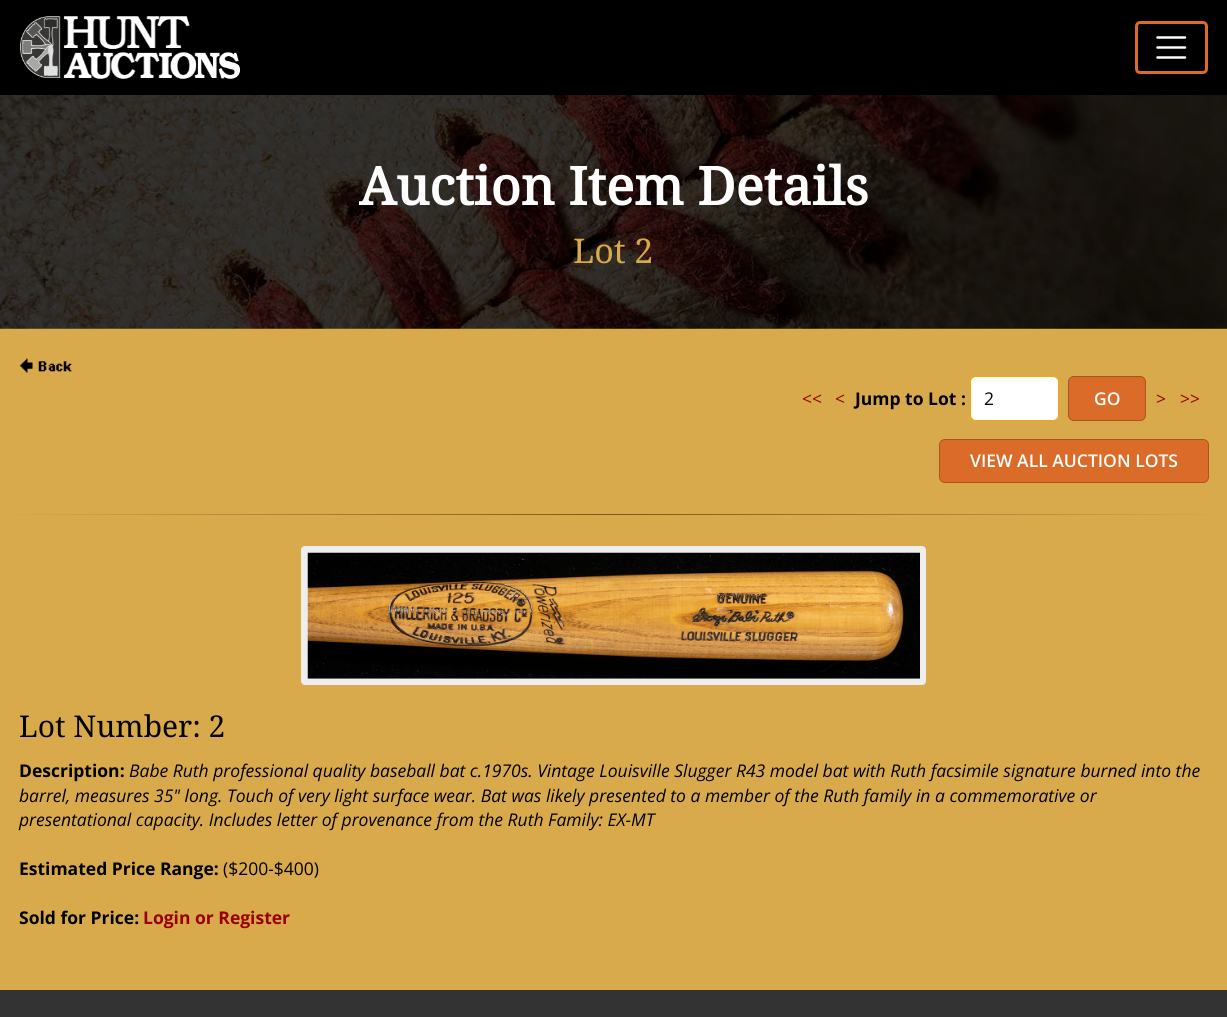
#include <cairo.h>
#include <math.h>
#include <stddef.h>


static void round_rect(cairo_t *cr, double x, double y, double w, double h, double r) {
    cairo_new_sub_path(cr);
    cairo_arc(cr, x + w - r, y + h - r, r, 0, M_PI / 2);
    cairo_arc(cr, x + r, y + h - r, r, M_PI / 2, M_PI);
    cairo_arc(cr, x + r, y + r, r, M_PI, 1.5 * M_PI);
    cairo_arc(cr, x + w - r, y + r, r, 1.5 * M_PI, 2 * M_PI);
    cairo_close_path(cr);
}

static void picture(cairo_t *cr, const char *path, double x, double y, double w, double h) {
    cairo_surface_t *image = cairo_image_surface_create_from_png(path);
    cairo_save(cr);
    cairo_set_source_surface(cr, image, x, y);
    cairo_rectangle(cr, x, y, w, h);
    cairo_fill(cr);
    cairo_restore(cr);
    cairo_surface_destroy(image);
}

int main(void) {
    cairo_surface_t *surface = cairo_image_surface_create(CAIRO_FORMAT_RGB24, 1227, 1017);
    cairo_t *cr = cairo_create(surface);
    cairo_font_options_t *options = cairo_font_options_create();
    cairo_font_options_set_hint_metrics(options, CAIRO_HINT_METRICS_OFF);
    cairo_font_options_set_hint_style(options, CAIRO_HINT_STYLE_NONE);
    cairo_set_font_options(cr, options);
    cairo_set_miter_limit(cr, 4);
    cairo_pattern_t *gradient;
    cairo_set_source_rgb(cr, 0.847, 0.667, 0.298);
    cairo_paint(cr);
    cairo_set_source_rgb(cr, 0, 0, 0);
    cairo_rectangle(cr, 0, 0, 1227, 95);
    cairo_fill(cr);
    picture(cr, "img1.png", 20, 16, 220, 63);
    round_rect(cr, 1136.5, 22.5, 70, 50, 3.5);
    cairo_set_source_rgb(cr, 0.859, 0.42, 0.157);
    cairo_set_line_width(cr, 3);
    cairo_stroke(cr);
    cairo_new_path(cr);
    cairo_move_to(cr, 1157.5, 37.5);
    cairo_line_to(cr, 1185, 37.5);
    cairo_move_to(cr, 1157.5, 47.5);
    cairo_line_to(cr, 1185, 47.5);
    cairo_move_to(cr, 1157.5, 57.5);
    cairo_line_to(cr, 1185, 57.5);
    cairo_set_source_rgb(cr, 1, 1, 1);
    cairo_set_line_width(cr, 2.5);
    cairo_set_line_cap(cr, CAIRO_LINE_CAP_ROUND);
    cairo_stroke(cr);
    picture(cr, "img2.png", 0, 95, 1227, 234);
    cairo_select_font_face(cr, "Droid Serif", CAIRO_FONT_SLANT_NORMAL, CAIRO_FONT_WEIGHT_BOLD);
    cairo_set_font_size(cr, 52.5);
    cairo_move_to(cr, 359, 205);
    cairo_show_text(cr, "Auction Item Details");
    cairo_select_font_face(cr, "Droid Serif", CAIRO_FONT_SLANT_NORMAL, CAIRO_FONT_WEIGHT_NORMAL);
    cairo_set_font_size(cr, 34);
    cairo_set_source_rgb(cr, 0.847, 0.667, 0.298);
    cairo_move_to(cr, 573, 263);
    cairo_show_text(cr, "Lot 2");
    picture(cr, "img3.png", 19, 358, 53, 15);
    cairo_select_font_face(cr, "Open Sans", CAIRO_FONT_SLANT_NORMAL, CAIRO_FONT_WEIGHT_NORMAL);
    cairo_set_font_size(cr, 17.5);
    cairo_set_source_rgb(cr, 0.6, 0, 0);
    cairo_move_to(cr, 802, 405);
    cairo_show_text(cr, "<<");
    cairo_move_to(cr, 835, 405);
    cairo_show_text(cr, "<");
    cairo_select_font_face(cr, "Open Sans", CAIRO_FONT_SLANT_NORMAL, CAIRO_FONT_WEIGHT_BOLD);
    cairo_set_source_rgb(cr, 0, 0, 0);
    cairo_move_to(cr, 855, 405);
    cairo_show_text(cr, "Jump to Lot :");
    cairo_set_source_rgb(cr, 1, 1, 1);
    round_rect(cr, 970.5, 376.5, 88, 44, 5.5);
    cairo_fill_preserve(cr);
    cairo_set_source_rgb(cr, 1, 0.647, 0);
    cairo_set_line_width(cr, 1);
    cairo_set_line_cap(cr, CAIRO_LINE_CAP_BUTT);
    cairo_stroke(cr);
    cairo_select_font_face(cr, "Open Sans", CAIRO_FONT_SLANT_NORMAL, CAIRO_FONT_WEIGHT_NORMAL);
    cairo_set_source_rgb(cr, 0, 0, 0);
    cairo_move_to(cr, 984, 405);
    cairo_show_text(cr, "2");
    cairo_set_source_rgb(cr, 0.859, 0.42, 0.157);
    round_rect(cr, 1068.5, 376.5, 77, 44, 5.5);
    cairo_fill_preserve(cr);
    cairo_set_source_rgb(cr, 0.678, 0.325, 0.118);
    cairo_stroke(cr);
    cairo_select_font_face(cr, "Open Sans SemiBold", CAIRO_FONT_SLANT_NORMAL, CAIRO_FONT_WEIGHT_NORMAL);
    cairo_set_source_rgb(cr, 1, 1, 1);
    cairo_move_to(cr, 1094, 405);
    cairo_show_text(cr, "GO");
    cairo_select_font_face(cr, "Open Sans", CAIRO_FONT_SLANT_NORMAL, CAIRO_FONT_WEIGHT_NORMAL);
    cairo_set_source_rgb(cr, 0.6, 0, 0);
    cairo_move_to(cr, 1156, 405);
    cairo_show_text(cr, ">");
    cairo_move_to(cr, 1180, 405);
    cairo_show_text(cr, ">>");
    cairo_set_source_rgb(cr, 0.859, 0.42, 0.157);
    round_rect(cr, 939.5, 439.5, 269, 43, 5.5);
    cairo_fill_preserve(cr);
    cairo_set_source_rgb(cr, 0.678, 0.325, 0.118);
    cairo_stroke(cr);
    cairo_select_font_face(cr, "Open Sans SemiBold", CAIRO_FONT_SLANT_NORMAL, CAIRO_FONT_WEIGHT_NORMAL);
    cairo_set_source_rgb(cr, 1, 1, 1);
    cairo_move_to(cr, 970, 467);
    cairo_show_text(cr, "VIEW ALL AUCTION LOTS");
    gradient = cairo_pattern_create_linear(0, 514, 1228, 514);
    cairo_pattern_add_color_stop_rgba(gradient, 0, 0.847, 0.667, 0.298, 1);
    cairo_pattern_add_color_stop_rgba(gradient, 0.5, 0.467, 0.349, 0.145, 1);
    cairo_pattern_add_color_stop_rgba(gradient, 1, 0.847, 0.667, 0.298, 1);
    cairo_set_source(cr, gradient);
    cairo_pattern_destroy(gradient);
    cairo_rectangle(cr, 16, 514, 1196, 1);
    cairo_fill(cr);
    cairo_set_source_rgb(cr, 0.933, 0.933, 0.933);
    round_rect(cr, 304, 549, 619, 133, 1);
    cairo_fill_preserve(cr);
    cairo_set_line_width(cr, 6);
    cairo_stroke(cr);
    picture(cr, "img4.png", 307, 552, 613, 127);
    cairo_select_font_face(cr, "Droid Serif", CAIRO_FONT_SLANT_NORMAL, CAIRO_FONT_WEIGHT_NORMAL);
    cairo_set_font_size(cr, 30);
    cairo_set_source_rgb(cr, 0, 0, 0);
    cairo_move_to(cr, 19, 737);
    cairo_show_text(cr, "Lot Number: 2");
    cairo_select_font_face(cr, "Open Sans", CAIRO_FONT_SLANT_NORMAL, CAIRO_FONT_WEIGHT_BOLD);
    cairo_set_font_size(cr, 17.5);
    cairo_move_to(cr, 19, 777);
    cairo_show_text(cr, "Description:");
    cairo_select_font_face(cr, "Open Sans", CAIRO_FONT_SLANT_ITALIC, CAIRO_FONT_WEIGHT_NORMAL);
    cairo_move_to(cr, 129, 777);
    cairo_show_text(cr, "Babe Ruth professional quality baseball bat c.1970s. Vintage Louisville Slugger R43 model bat with Ruth facsimile signature burned into the");
    cairo_move_to(cr, 19, 802);
    cairo_show_text(cr, "barrel, measures 35\" long. Touch of very light surface wear. Bat was likely presented to a member of the Ruth family in a commemorative or");
    cairo_move_to(cr, 19, 826);
    cairo_show_text(cr, "presentational capacity. Includes letter of provenance from the Ruth Family: EX-MT");
    cairo_select_font_face(cr, "Open Sans", CAIRO_FONT_SLANT_NORMAL, CAIRO_FONT_WEIGHT_BOLD);
    cairo_move_to(cr, 19, 875);
    cairo_show_text(cr, "Estimated Price Range:");
    cairo_select_font_face(cr, "Open Sans", CAIRO_FONT_SLANT_NORMAL, CAIRO_FONT_WEIGHT_NORMAL);
    cairo_move_to(cr, 223, 875);
    cairo_show_text(cr, "($200-$400)");
    cairo_select_font_face(cr, "Open Sans", CAIRO_FONT_SLANT_NORMAL, CAIRO_FONT_WEIGHT_BOLD);
    cairo_move_to(cr, 19, 924);
    cairo_show_text(cr, "Sold for Price:");
    cairo_set_source_rgb(cr, 0.6, 0, 0);
    cairo_move_to(cr, 143, 924);
    cairo_show_text(cr, "Login or Register");
    cairo_set_source_rgb(cr, 0.2, 0.2, 0.2);
    cairo_rectangle(cr, 0, 990, 1227, 27);
    cairo_fill(cr);
    cairo_surface_write_to_png(surface, "page.png");
    cairo_font_options_destroy(options);
    cairo_destroy(cr);
    cairo_surface_destroy(surface);
    return 0;
}
